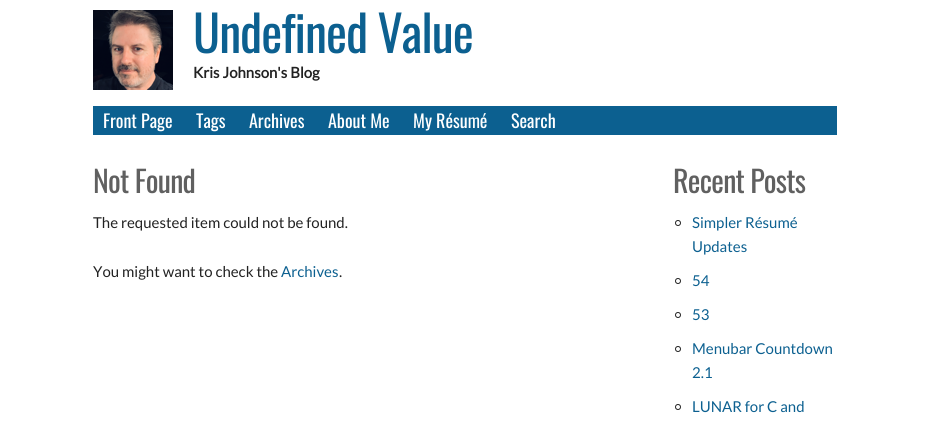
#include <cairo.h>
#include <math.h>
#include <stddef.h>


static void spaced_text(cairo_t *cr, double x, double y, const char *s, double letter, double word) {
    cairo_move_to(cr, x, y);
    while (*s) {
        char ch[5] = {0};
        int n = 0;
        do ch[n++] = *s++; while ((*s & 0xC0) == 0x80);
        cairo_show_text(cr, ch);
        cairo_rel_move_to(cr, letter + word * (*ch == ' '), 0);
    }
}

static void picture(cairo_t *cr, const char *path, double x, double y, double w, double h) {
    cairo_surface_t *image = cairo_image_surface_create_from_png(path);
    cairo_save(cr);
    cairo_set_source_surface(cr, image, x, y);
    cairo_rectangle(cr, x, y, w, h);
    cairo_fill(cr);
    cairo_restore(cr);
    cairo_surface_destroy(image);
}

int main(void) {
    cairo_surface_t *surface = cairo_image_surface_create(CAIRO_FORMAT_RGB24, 930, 422);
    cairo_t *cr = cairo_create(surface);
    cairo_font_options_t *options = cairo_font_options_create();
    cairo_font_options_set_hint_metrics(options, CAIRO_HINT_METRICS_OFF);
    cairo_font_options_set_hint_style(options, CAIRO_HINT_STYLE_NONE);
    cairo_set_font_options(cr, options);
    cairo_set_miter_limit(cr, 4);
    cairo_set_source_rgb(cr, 1, 1, 1);
    cairo_paint(cr);
    picture(cr, "img1.png", 93, 10, 80, 80);
    cairo_select_font_face(cr, "Oswald", CAIRO_FONT_SLANT_NORMAL, CAIRO_FONT_WEIGHT_NORMAL);
    cairo_set_font_size(cr, 50);
    cairo_set_source_rgb(cr, 0.047, 0.376, 0.565);
    spaced_text(cr, 193, 53, "Undefined Value", -1, 0);
    cairo_select_font_face(cr, "Lato", CAIRO_FONT_SLANT_NORMAL, CAIRO_FONT_WEIGHT_BOLD);
    cairo_set_font_size(cr, 15);
    cairo_set_source_rgb(cr, 0.133, 0.133, 0.133);
    cairo_move_to(cr, 193, 78);
    cairo_show_text(cr, "Kris Johnson's Blog");
    cairo_set_source_rgb(cr, 0.047, 0.376, 0.565);
    cairo_rectangle(cr, 93, 106, 744, 29);
    cairo_fill(cr);
    cairo_select_font_face(cr, "Oswald", CAIRO_FONT_SLANT_NORMAL, CAIRO_FONT_WEIGHT_NORMAL);
    cairo_set_font_size(cr, 18);
    cairo_set_source_rgb(cr, 1, 1, 1);
    cairo_move_to(cr, 103, 128);
    cairo_show_text(cr, "Front Page");
    cairo_move_to(cr, 196, 128);
    cairo_show_text(cr, "Tags");
    cairo_move_to(cr, 249, 128);
    cairo_show_text(cr, "Archives");
    cairo_move_to(cr, 328, 128);
    cairo_show_text(cr, "About Me");
    cairo_move_to(cr, 413, 128);
    cairo_show_text(cr, "My Résumé");
    cairo_move_to(cr, 511, 128);
    cairo_show_text(cr, "Search");
    cairo_set_font_size(cr, 30);
    cairo_set_source_rgb(cr, 0.376, 0.376, 0.376);
    spaced_text(cr, 93, 193, "Not Found", -0.75, 0);
    cairo_select_font_face(cr, "Lato", CAIRO_FONT_SLANT_NORMAL, CAIRO_FONT_WEIGHT_NORMAL);
    cairo_set_font_size(cr, 15);
    cairo_set_source_rgb(cr, 0.133, 0.133, 0.133);
    cairo_move_to(cr, 93, 228);
    cairo_show_text(cr, "The requested item could not be found.");
    cairo_move_to(cr, 93, 277);
    cairo_show_text(cr, "You might want to check the");
    cairo_set_source_rgb(cr, 0.047, 0.376, 0.565);
    cairo_move_to(cr, 281, 277);
    cairo_show_text(cr, "Archives");
    cairo_set_source_rgb(cr, 0.133, 0.133, 0.133);
    cairo_move_to(cr, 339, 277);
    cairo_show_text(cr, ".");
    cairo_select_font_face(cr, "Oswald", CAIRO_FONT_SLANT_NORMAL, CAIRO_FONT_WEIGHT_NORMAL);
    cairo_set_font_size(cr, 30);
    cairo_set_source_rgb(cr, 0.376, 0.376, 0.376);
    spaced_text(cr, 673, 193, "Recent Posts", -0.75, 0);
    cairo_new_path(cr);
    cairo_arc(cr, 678, 223, 2.5, 0, 2 * M_PI);
    cairo_set_source_rgb(cr, 0.133, 0.133, 0.133);
    cairo_set_line_width(cr, 1);
    cairo_stroke(cr);
    cairo_select_font_face(cr, "Lato", CAIRO_FONT_SLANT_NORMAL, CAIRO_FONT_WEIGHT_NORMAL);
    cairo_set_font_size(cr, 15);
    cairo_set_source_rgb(cr, 0.047, 0.376, 0.565);
    cairo_move_to(cr, 692, 228);
    cairo_show_text(cr, "Simpler Résumé");
    cairo_move_to(cr, 692, 252);
    cairo_show_text(cr, "Updates");
    cairo_new_path(cr);
    cairo_arc(cr, 678, 281, 2.5, 0, 2 * M_PI);
    cairo_set_source_rgb(cr, 0.133, 0.133, 0.133);
    cairo_stroke(cr);
    cairo_set_source_rgb(cr, 0.047, 0.376, 0.565);
    cairo_move_to(cr, 692, 286);
    cairo_show_text(cr, "54");
    cairo_new_path(cr);
    cairo_arc(cr, 678, 315, 2.5, 0, 2 * M_PI);
    cairo_set_source_rgb(cr, 0.133, 0.133, 0.133);
    cairo_stroke(cr);
    cairo_set_source_rgb(cr, 0.047, 0.376, 0.565);
    cairo_move_to(cr, 692, 320);
    cairo_show_text(cr, "53");
    cairo_new_path(cr);
    cairo_arc(cr, 678, 349, 2.5, 0, 2 * M_PI);
    cairo_set_source_rgb(cr, 0.133, 0.133, 0.133);
    cairo_stroke(cr);
    cairo_set_source_rgb(cr, 0.047, 0.376, 0.565);
    cairo_move_to(cr, 692, 354);
    cairo_show_text(cr, "Menubar Countdown");
    cairo_move_to(cr, 692, 378);
    cairo_show_text(cr, "2.1");
    cairo_new_path(cr);
    cairo_arc(cr, 678, 407, 2.5, 0, 2 * M_PI);
    cairo_set_source_rgb(cr, 0.133, 0.133, 0.133);
    cairo_stroke(cr);
    cairo_set_source_rgb(cr, 0.047, 0.376, 0.565);
    cairo_move_to(cr, 692, 412);
    cairo_show_text(cr, "LUNAR for C and");
    cairo_surface_write_to_png(surface, "page.png");
    cairo_font_options_destroy(options);
    cairo_destroy(cr);
    cairo_surface_destroy(surface);
    return 0;
}
